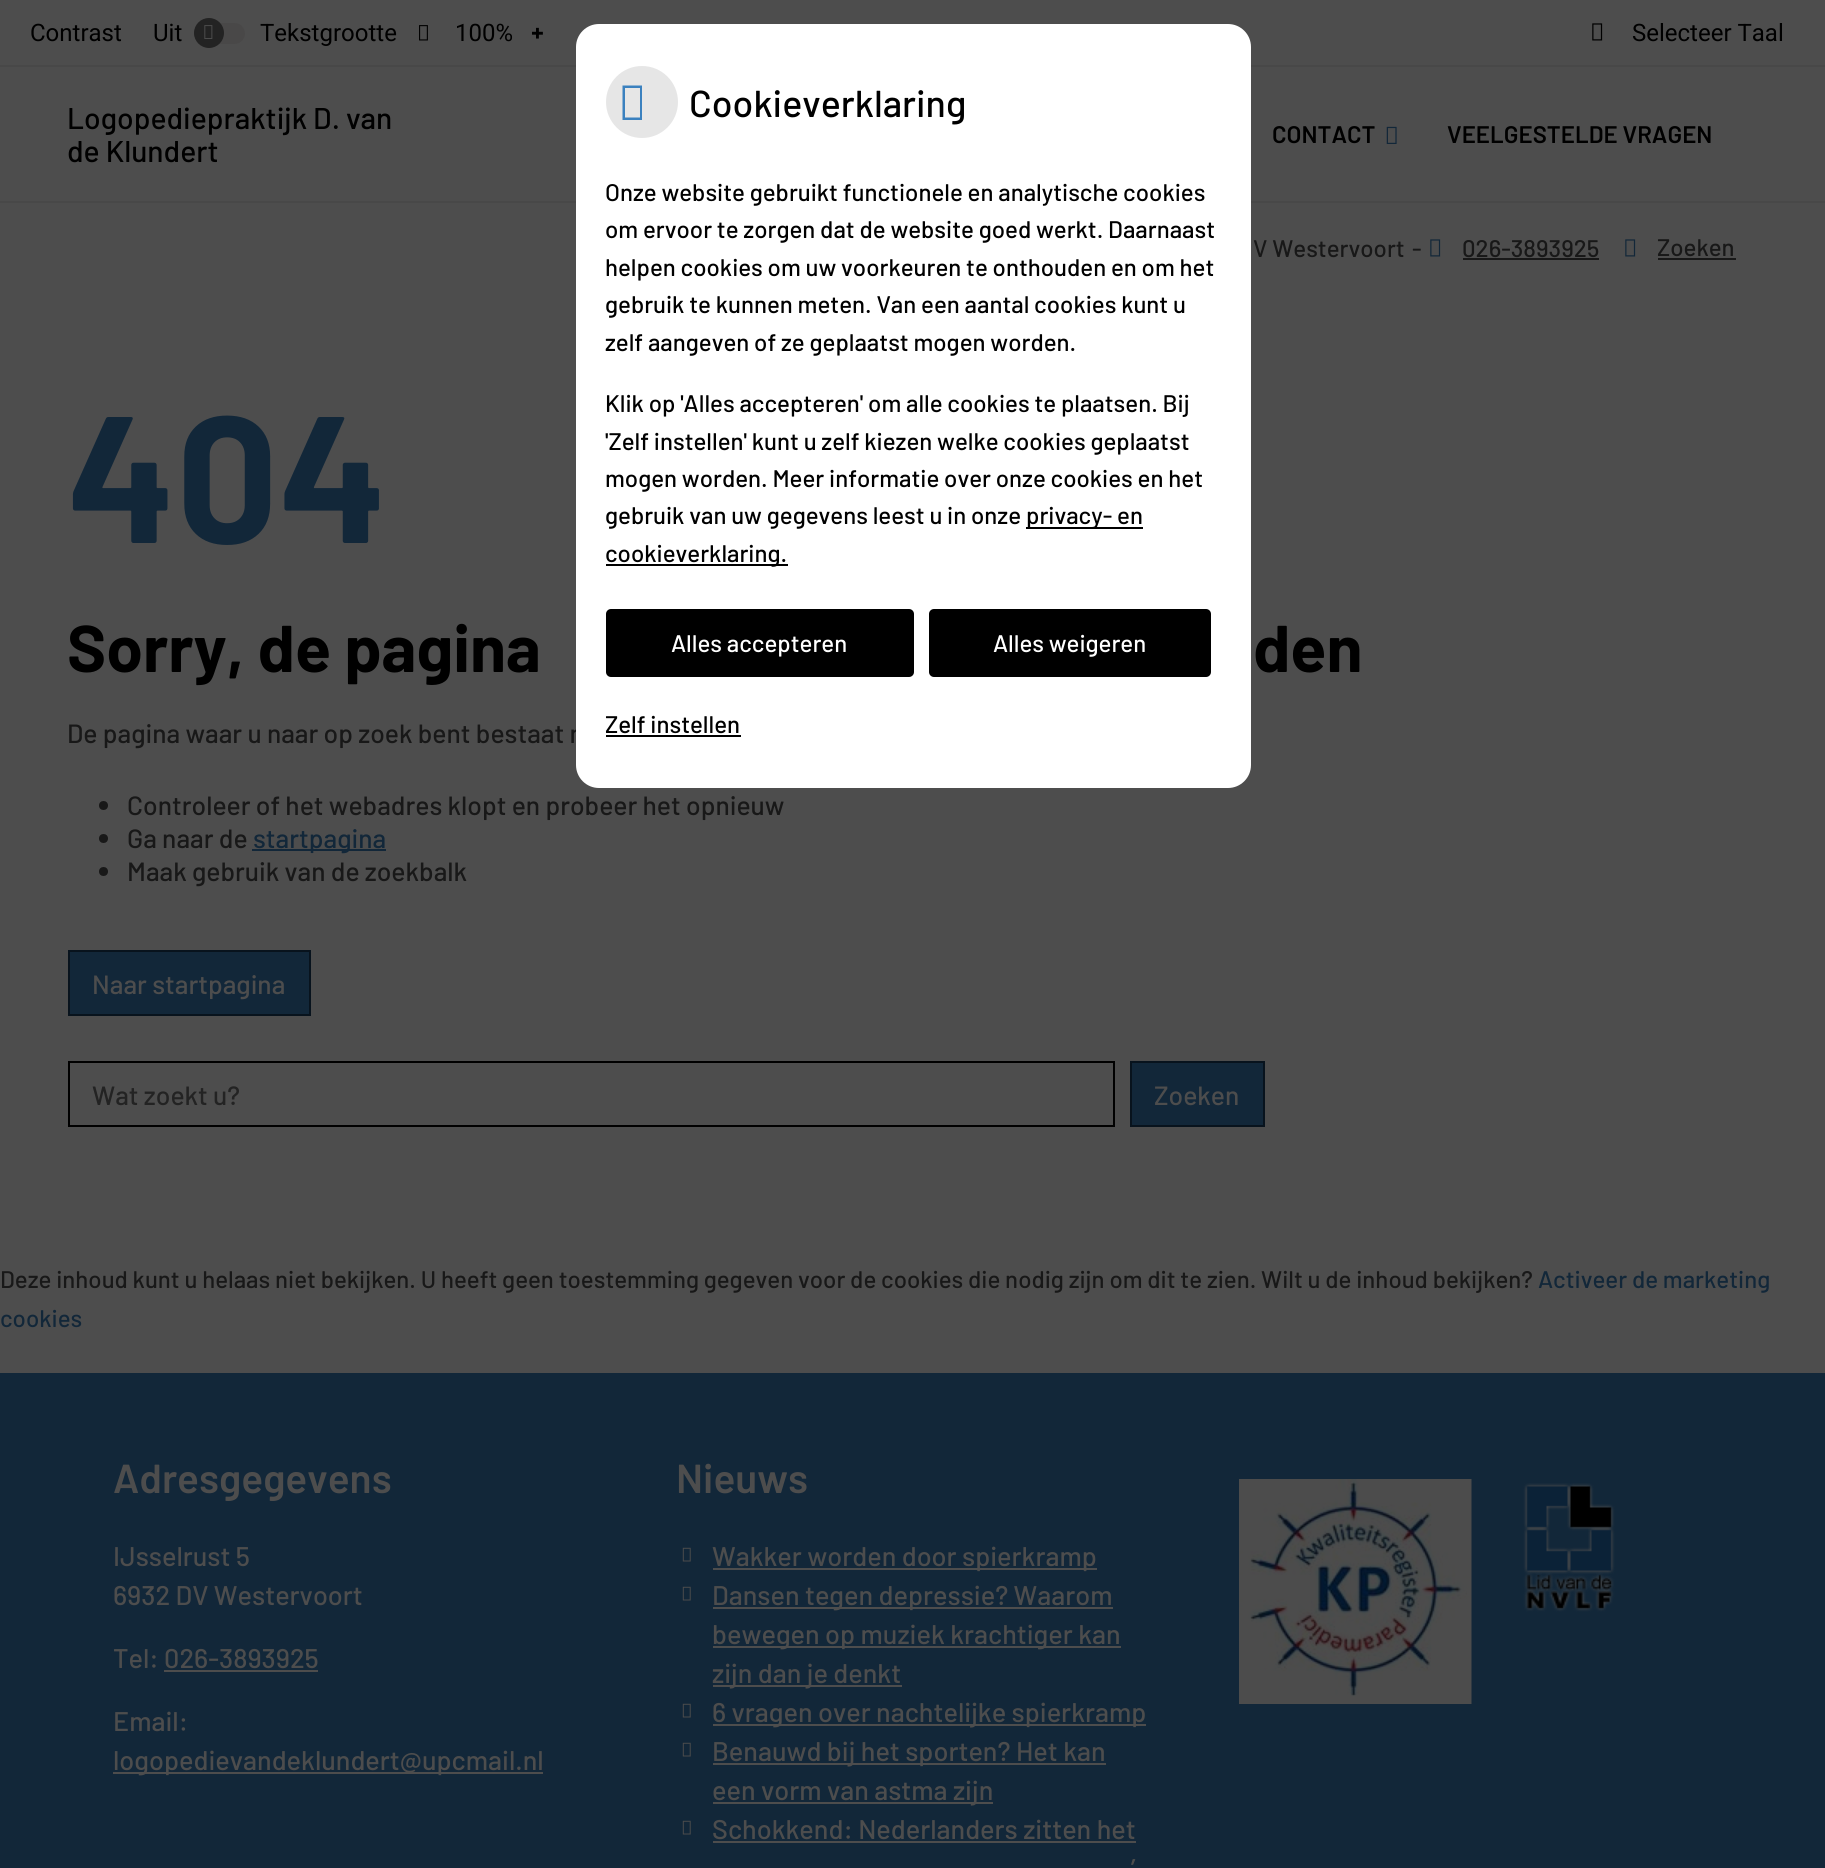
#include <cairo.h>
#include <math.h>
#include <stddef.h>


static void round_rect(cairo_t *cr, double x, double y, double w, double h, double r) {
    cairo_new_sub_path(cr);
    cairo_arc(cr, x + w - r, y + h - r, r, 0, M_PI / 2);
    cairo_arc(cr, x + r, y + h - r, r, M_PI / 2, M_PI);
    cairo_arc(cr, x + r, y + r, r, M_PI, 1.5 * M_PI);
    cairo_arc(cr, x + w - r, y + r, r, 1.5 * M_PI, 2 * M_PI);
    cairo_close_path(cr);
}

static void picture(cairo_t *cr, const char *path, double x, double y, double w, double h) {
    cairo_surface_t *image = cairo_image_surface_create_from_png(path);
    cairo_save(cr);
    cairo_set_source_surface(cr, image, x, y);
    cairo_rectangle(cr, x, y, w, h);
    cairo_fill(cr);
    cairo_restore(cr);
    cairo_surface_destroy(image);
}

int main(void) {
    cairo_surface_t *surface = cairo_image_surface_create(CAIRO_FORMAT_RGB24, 1825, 1868);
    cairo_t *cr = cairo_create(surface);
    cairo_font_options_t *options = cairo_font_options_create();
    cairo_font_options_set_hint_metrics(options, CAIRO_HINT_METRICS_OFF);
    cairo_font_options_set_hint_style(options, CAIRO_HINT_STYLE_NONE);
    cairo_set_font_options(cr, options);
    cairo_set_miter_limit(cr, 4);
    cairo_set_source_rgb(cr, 0.302, 0.302, 0.302);
    cairo_paint(cr);
    cairo_select_font_face(cr, "Roboto", CAIRO_FONT_SLANT_NORMAL, CAIRO_FONT_WEIGHT_NORMAL);
    cairo_set_font_size(cr, 24);
    cairo_set_source_rgb(cr, 0, 0, 0);
    cairo_move_to(cr, 30, 41);
    cairo_show_text(cr, "Contrast");
    cairo_move_to(cr, 153, 41);
    cairo_show_text(cr, "Uit");
    cairo_set_source_rgb(cr, 0.286, 0.282, 0.282);
    round_rect(cr, 194, 23, 51, 21, 10.5);
    cairo_fill(cr);
    cairo_set_source_rgb(cr, 0.137, 0.137, 0.137);
    cairo_arc(cr, 209, 33, 15, 0, 2 * M_PI);
    cairo_fill(cr);
    picture(cr, "img1.png", 204, 25, 9, 14);
    cairo_set_source_rgb(cr, 0, 0, 0);
    cairo_move_to(cr, 260, 41);
    cairo_show_text(cr, "Tekstgrootte");
    picture(cr, "img2.png", 419, 25, 9, 16);
    cairo_move_to(cr, 455, 41);
    cairo_show_text(cr, "100%");
    cairo_select_font_face(cr, "Noto Sans Black", CAIRO_FONT_SLANT_NORMAL, CAIRO_FONT_WEIGHT_NORMAL);
    cairo_set_font_size(cr, 22);
    cairo_move_to(cr, 531, 41);
    cairo_show_text(cr, "+");
    picture(cr, "img3.png", 1592, 23, 11, 18);
    cairo_select_font_face(cr, "Roboto", CAIRO_FONT_SLANT_NORMAL, CAIRO_FONT_WEIGHT_NORMAL);
    cairo_set_font_size(cr, 24);
    cairo_move_to(cr, 1632, 41);
    cairo_show_text(cr, "Selecteer Taal");
    cairo_set_source_rgb(cr, 0.282, 0.282, 0.282);
    cairo_rectangle(cr, 0, 65, 1825, 2);
    cairo_fill(cr);
    cairo_rectangle(cr, 0, 201, 1825, 2);
    cairo_fill(cr);
    cairo_select_font_face(cr, "Barlow Medium", CAIRO_FONT_SLANT_NORMAL, CAIRO_FONT_WEIGHT_NORMAL);
    cairo_set_font_size(cr, 26.4);
    cairo_set_source_rgb(cr, 0.094, 0.094, 0.094);
    cairo_move_to(cr, 67, 743);
    cairo_show_text(cr, "De pagina waar u naar op zoek bent bestaat n");
    cairo_set_source_rgb(cr, 1, 1, 1);
    round_rect(cr, 576, 24, 675, 764, 23);
    cairo_fill(cr);
    cairo_set_source_rgb(cr, 0.902, 0.902, 0.902);
    cairo_arc(cr, 642, 102, 36, 0, 2 * M_PI);
    cairo_fill(cr);
    cairo_set_source_rgb(cr, 0.231, 0.506, 0.749);
    cairo_new_path(cr);
    cairo_move_to(cr, 622.5, 120);
    cairo_line_to(cr, 622.5, 85.5);
    cairo_line_to(cr, 642, 85.5);
    cairo_line_to(cr, 642, 120);
    cairo_close_path(cr);
    cairo_move_to(cr, 625, 117.5);
    cairo_line_to(cr, 640, 117.5);
    cairo_line_to(cr, 640, 88);
    cairo_line_to(cr, 625, 88);
    cairo_close_path(cr);
    cairo_fill(cr);
    cairo_set_font_size(cr, 37.5);
    cairo_set_source_rgb(cr, 0, 0, 0);
    cairo_move_to(cr, 689, 117);
    cairo_show_text(cr, "Cookieverklaring");
    cairo_set_font_size(cr, 24);
    cairo_move_to(cr, 605, 201);
    cairo_show_text(cr, "Onze website gebruikt functionele en analytische cookies");
    cairo_move_to(cr, 605, 238);
    cairo_show_text(cr, "om ervoor te zorgen dat de website goed werkt. Daarnaast");
    cairo_move_to(cr, 605, 276);
    cairo_show_text(cr, "helpen cookies om uw voorkeuren te onthouden en om het");
    cairo_move_to(cr, 605, 313);
    cairo_show_text(cr, "gebruik te kunnen meten. Van een aantal cookies kunt u");
    cairo_move_to(cr, 605, 351);
    cairo_show_text(cr, "zelf aangeven of ze geplaatst mogen worden.");
    cairo_move_to(cr, 605, 412);
    cairo_show_text(cr, "Klik op 'Alles accepteren' om alle cookies te plaatsen. Bij");
    cairo_move_to(cr, 605, 450);
    cairo_show_text(cr, "'Zelf instellen' kunt u zelf kiezen welke cookies geplaatst");
    cairo_move_to(cr, 605, 487);
    cairo_show_text(cr, "mogen worden. Meer informatie over onze cookies en het");
    cairo_move_to(cr, 605, 524);
    cairo_show_text(cr, "gebruik van uw gegevens leest u in onze");
    cairo_rectangle(cr, 1026, 527, 117, 2);
    cairo_fill(cr);
    cairo_move_to(cr, 1026, 524);
    cairo_show_text(cr, "privacy- en");
    cairo_rectangle(cr, 606, 564, 182, 2);
    cairo_fill(cr);
    cairo_move_to(cr, 605, 562);
    cairo_show_text(cr, "cookieverklaring.");
    round_rect(cr, 606, 609, 308, 68, 5);
    cairo_fill(cr);
    cairo_set_source_rgb(cr, 1, 1, 1);
    cairo_move_to(cr, 671, 652);
    cairo_show_text(cr, "Alles accepteren");
    cairo_set_source_rgb(cr, 0, 0, 0);
    round_rect(cr, 929, 609, 282, 68, 5);
    cairo_fill(cr);
    cairo_set_source_rgb(cr, 1, 1, 1);
    cairo_move_to(cr, 993, 652);
    cairo_show_text(cr, "Alles weigeren");
    cairo_set_source_rgb(cr, 0, 0, 0);
    cairo_move_to(cr, 605, 733);
    cairo_show_text(cr, "Zelf instellen");
    cairo_rectangle(cr, 606, 735, 135, 2);
    cairo_fill(cr);
    cairo_set_font_size(cr, 30);
    cairo_move_to(cr, 67, 129);
    cairo_show_text(cr, "Logopediepraktijk D. van");
    cairo_move_to(cr, 67, 162);
    cairo_show_text(cr, "de Klundert");
    cairo_select_font_face(cr, "Barlow SemiBold", CAIRO_FONT_SLANT_NORMAL, CAIRO_FONT_WEIGHT_NORMAL);
    cairo_set_font_size(cr, 24);
    cairo_move_to(cr, 1272, 143);
    cairo_show_text(cr, "CONTACT");
    picture(cr, "img4.png", 1386, 126, 11, 18);
    cairo_move_to(cr, 1447, 143);
    cairo_show_text(cr, "VEELGESTELDE VRAGEN");
    cairo_select_font_face(cr, "Barlow Medium", CAIRO_FONT_SLANT_NORMAL, CAIRO_FONT_WEIGHT_NORMAL);
    cairo_set_source_rgb(cr, 0.094, 0.094, 0.094);
    cairo_move_to(cr, 1253, 257);
    cairo_show_text(cr, "V Westervoort");
    cairo_move_to(cr, 1412, 257);
    cairo_show_text(cr, "-");
    picture(cr, "img5.png", 1430, 239, 11, 18);
    cairo_move_to(cr, 1462, 257);
    cairo_show_text(cr, "026-3893925");
    cairo_rectangle(cr, 1463, 258, 136, 2);
    cairo_fill(cr);
    picture(cr, "img5.png", 1625, 239, 11, 18);
    cairo_move_to(cr, 1657, 256);
    cairo_show_text(cr, "Zoeken");
    cairo_rectangle(cr, 1658, 258, 78, 2);
    cairo_fill(cr);
    cairo_select_font_face(cr, "Barlow", CAIRO_FONT_SLANT_NORMAL, CAIRO_FONT_WEIGHT_BOLD);
    cairo_set_font_size(cr, 180);
    cairo_set_source_rgb(cr, 0.071, 0.153, 0.224);
    cairo_move_to(cr, 67, 543);
    cairo_show_text(cr, "404");
    cairo_set_font_size(cr, 66);
    cairo_set_source_rgb(cr, 0, 0, 0);
    cairo_move_to(cr, 67, 672);
    cairo_show_text(cr, "Sorry, de pagina");
    cairo_move_to(cr, 1253, 672);
    cairo_show_text(cr, "den");
    cairo_set_source_rgb(cr, 0.094, 0.094, 0.094);
    cairo_new_path(cr);
    cairo_arc(cr, 103.5, 805.5, 4.5, 0, 2 * M_PI);
    cairo_fill(cr);
    cairo_select_font_face(cr, "Barlow Medium", CAIRO_FONT_SLANT_NORMAL, CAIRO_FONT_WEIGHT_NORMAL);
    cairo_set_font_size(cr, 26.4);
    cairo_move_to(cr, 127, 815);
    cairo_show_text(cr, "Controleer of het webadres klopt en probeer het opnieuw");
    cairo_new_path(cr);
    cairo_arc(cr, 103.5, 838.5, 4.5, 0, 2 * M_PI);
    cairo_fill(cr);
    cairo_move_to(cr, 127, 848);
    cairo_show_text(cr, "Ga naar de");
    cairo_set_source_rgb(cr, 0.071, 0.153, 0.224);
    cairo_rectangle(cr, 252, 849, 134, 2);
    cairo_fill(cr);
    cairo_move_to(cr, 253, 848);
    cairo_show_text(cr, "startpagina");
    cairo_set_source_rgb(cr, 0.094, 0.094, 0.094);
    cairo_new_path(cr);
    cairo_arc(cr, 103.5, 871.5, 4.5, 0, 2 * M_PI);
    cairo_fill(cr);
    cairo_move_to(cr, 127, 881);
    cairo_show_text(cr, "Maak gebruik van de zoekbalk");
    cairo_set_source_rgb(cr, 0.071, 0.153, 0.224);
    cairo_rectangle(cr, 69, 951, 241, 64);
    cairo_fill_preserve(cr);
    cairo_set_source_rgb(cr, 0.035, 0.078, 0.114);
    cairo_stroke(cr);
    cairo_set_source_rgb(cr, 0.302, 0.302, 0.302);
    cairo_move_to(cr, 92, 994);
    cairo_show_text(cr, "Naar startpagina");
    cairo_rectangle(cr, 69, 1062, 1045, 64);
    cairo_set_source_rgb(cr, 0, 0, 0);
    cairo_stroke(cr);
    cairo_set_source_rgb(cr, 0.137, 0.137, 0.137);
    cairo_move_to(cr, 92, 1105);
    cairo_show_text(cr, "Wat zoekt u?");
    cairo_set_source_rgb(cr, 0.071, 0.153, 0.224);
    cairo_rectangle(cr, 1131, 1062, 133, 64);
    cairo_fill_preserve(cr);
    cairo_set_source_rgb(cr, 0.035, 0.078, 0.114);
    cairo_stroke(cr);
    cairo_set_source_rgb(cr, 0.302, 0.302, 0.302);
    cairo_move_to(cr, 1154, 1105);
    cairo_show_text(cr, "Zoeken");
    cairo_set_font_size(cr, 24);
    cairo_set_source_rgb(cr, 0.094, 0.094, 0.094);
    cairo_move_to(cr, 0, 1288);
    cairo_show_text(cr, "Deze inhoud kunt u helaas niet bekijken. U heeft geen toestemming gegeven voor de cookies die nodig zijn om dit te zien. Wilt u de inhoud bekijken?");
    cairo_set_source_rgb(cr, 0.071, 0.153, 0.224);
    cairo_move_to(cr, 1538, 1288);
    cairo_show_text(cr, "Activeer de marketing");
    cairo_move_to(cr, 0, 1327);
    cairo_show_text(cr, "cookies");
    cairo_rectangle(cr, 0, 1373, 1825, 495);
    cairo_fill(cr);
    cairo_select_font_face(cr, "Barlow SemiBold", CAIRO_FONT_SLANT_NORMAL, CAIRO_FONT_WEIGHT_NORMAL);
    cairo_set_font_size(cr, 40.5);
    cairo_set_source_rgb(cr, 0.302, 0.302, 0.302);
    cairo_move_to(cr, 113, 1493);
    cairo_show_text(cr, "Adresgegevens");
    cairo_select_font_face(cr, "Barlow Medium", CAIRO_FONT_SLANT_NORMAL, CAIRO_FONT_WEIGHT_NORMAL);
    cairo_set_font_size(cr, 27);
    cairo_move_to(cr, 113, 1566);
    cairo_show_text(cr, "IJsselrust 5");
    cairo_move_to(cr, 113, 1605);
    cairo_show_text(cr, "6932 DV Westervoort");
    cairo_move_to(cr, 113, 1668);
    cairo_show_text(cr, "Tel: 026-3893925");
    cairo_rectangle(cr, 164, 1670, 154, 2);
    cairo_fill(cr);
    cairo_move_to(cr, 113, 1731);
    cairo_show_text(cr, "Email:");
    cairo_rectangle(cr, 113, 1772, 430, 2);
    cairo_fill(cr);
    cairo_move_to(cr, 113, 1770);
    cairo_show_text(cr, "logopedievandeklundert@upcmail.nl");
    cairo_select_font_face(cr, "Barlow SemiBold", CAIRO_FONT_SLANT_NORMAL, CAIRO_FONT_WEIGHT_NORMAL);
    cairo_set_font_size(cr, 40.5);
    cairo_move_to(cr, 676, 1493);
    cairo_show_text(cr, "Nieuws");
    picture(cr, "img6.png", 682, 1547, 9, 15);
    cairo_rectangle(cr, 713, 1568, 384, 2);
    cairo_fill(cr);
    cairo_select_font_face(cr, "Barlow Medium", CAIRO_FONT_SLANT_NORMAL, CAIRO_FONT_WEIGHT_NORMAL);
    cairo_set_font_size(cr, 27);
    cairo_move_to(cr, 712, 1566);
    cairo_show_text(cr, "Wakker worden door spierkramp");
    picture(cr, "img6.png", 682, 1586, 9, 15);
    cairo_rectangle(cr, 713, 1607, 400, 2);
    cairo_fill(cr);
    cairo_move_to(cr, 712, 1605);
    cairo_show_text(cr, "Dansen tegen depressie? Waarom");
    cairo_rectangle(cr, 713, 1646, 408, 2);
    cairo_fill(cr);
    cairo_move_to(cr, 712, 1644);
    cairo_show_text(cr, "bewegen op muziek krachtiger kan");
    cairo_rectangle(cr, 713, 1685, 189, 2);
    cairo_fill(cr);
    cairo_move_to(cr, 712, 1683);
    cairo_show_text(cr, "zijn dan je denkt");
    picture(cr, "img6.png", 682, 1703, 9, 15);
    cairo_rectangle(cr, 713, 1724, 433, 2);
    cairo_fill(cr);
    cairo_move_to(cr, 712, 1722);
    cairo_show_text(cr, "6 vragen over nachtelijke spierkramp");
    picture(cr, "img6.png", 682, 1742, 9, 15);
    cairo_rectangle(cr, 713, 1763, 393, 2);
    cairo_fill(cr);
    cairo_move_to(cr, 712, 1761);
    cairo_show_text(cr, "Benauwd bij het sporten? Het kan");
    cairo_rectangle(cr, 713, 1802, 280, 2);
    cairo_fill(cr);
    cairo_move_to(cr, 712, 1800);
    cairo_show_text(cr, "een vorm van astma zijn");
    picture(cr, "img6.png", 682, 1820, 9, 15);
    cairo_move_to(cr, 712, 1839);
    cairo_show_text(cr, "Schokkend: Nederlanders zitten het");
    cairo_rectangle(cr, 713, 1841, 423, 2);
    cairo_fill(cr);
    cairo_move_to(cr, 1131, 1878);
    cairo_show_text(cr, "’");
    picture(cr, "img7.png", 1239, 1479, 233, 225);
    picture(cr, "img8.png", 1523, 1483, 92, 129);
    cairo_surface_write_to_png(surface, "page.png");
    cairo_font_options_destroy(options);
    cairo_destroy(cr);
    cairo_surface_destroy(surface);
    return 0;
}
